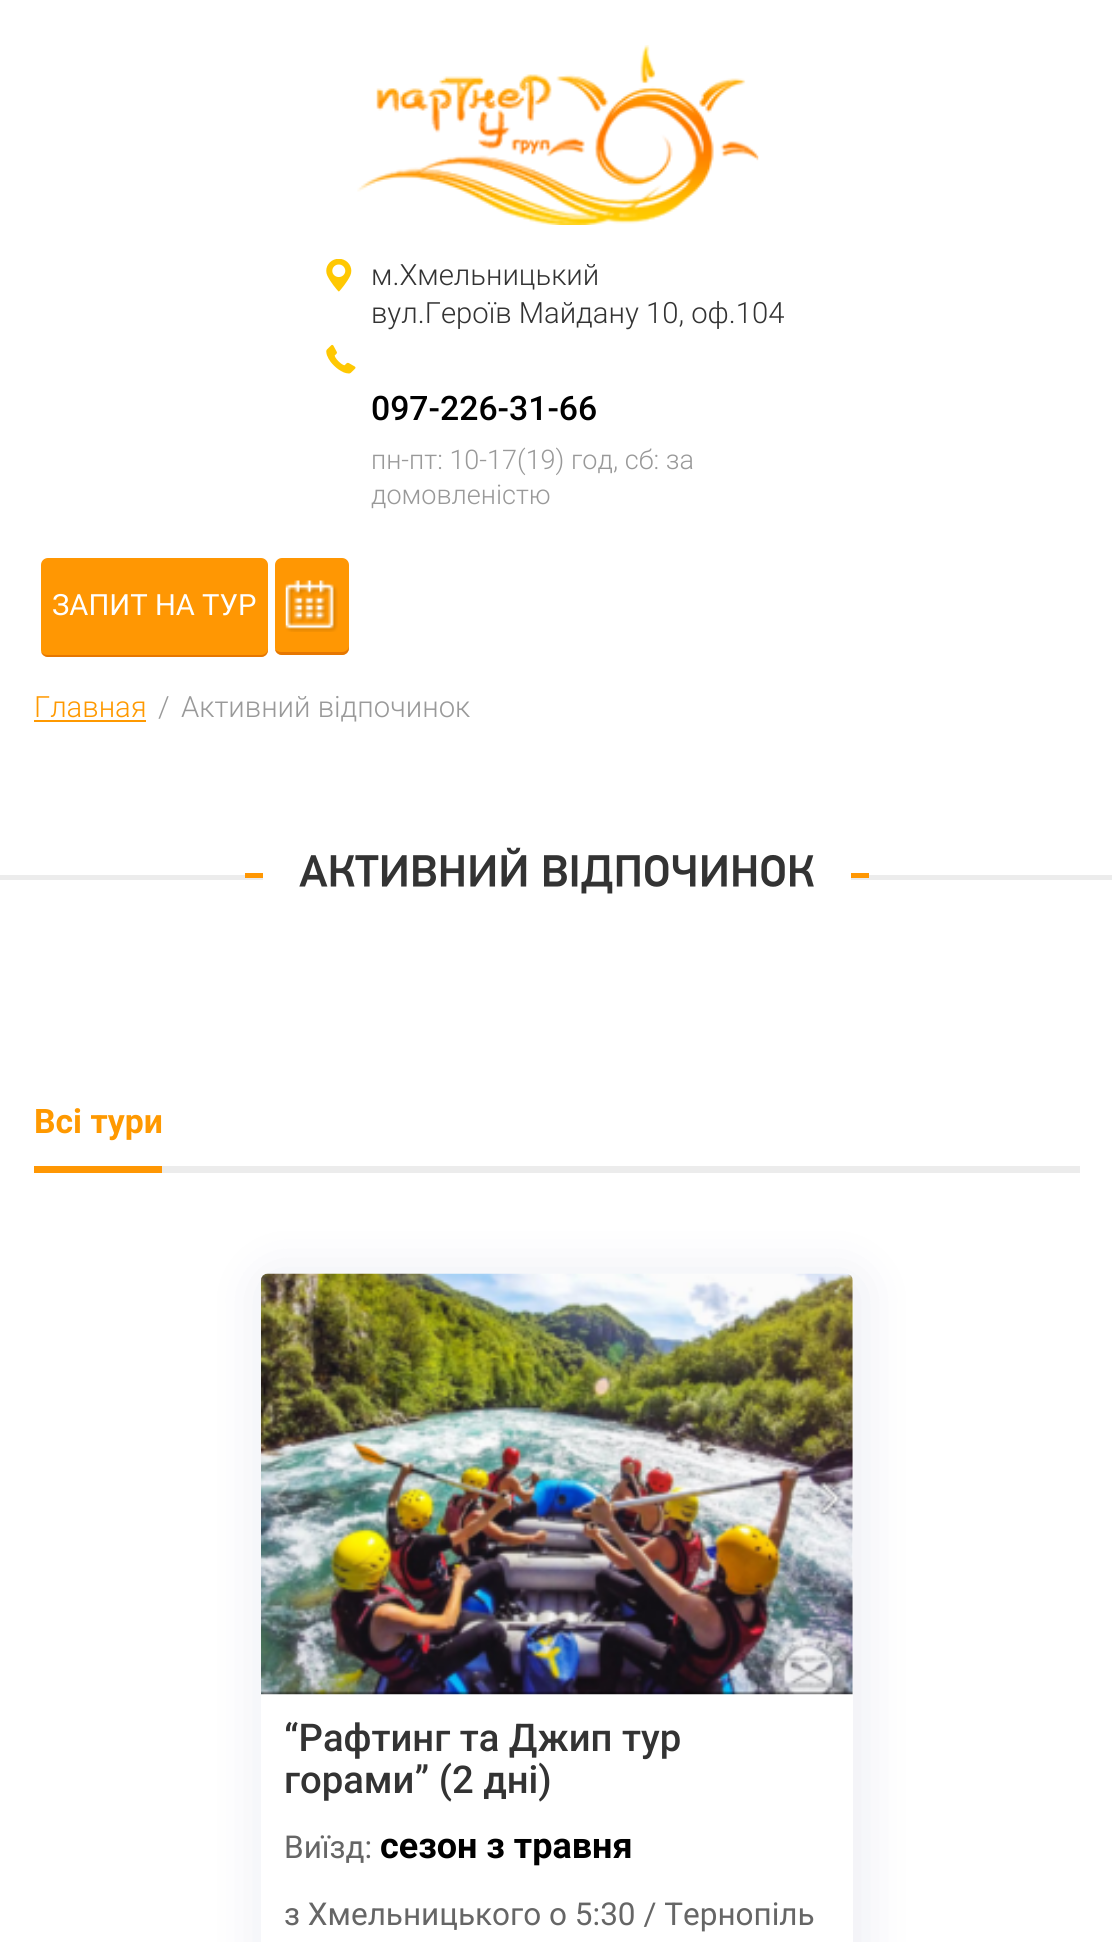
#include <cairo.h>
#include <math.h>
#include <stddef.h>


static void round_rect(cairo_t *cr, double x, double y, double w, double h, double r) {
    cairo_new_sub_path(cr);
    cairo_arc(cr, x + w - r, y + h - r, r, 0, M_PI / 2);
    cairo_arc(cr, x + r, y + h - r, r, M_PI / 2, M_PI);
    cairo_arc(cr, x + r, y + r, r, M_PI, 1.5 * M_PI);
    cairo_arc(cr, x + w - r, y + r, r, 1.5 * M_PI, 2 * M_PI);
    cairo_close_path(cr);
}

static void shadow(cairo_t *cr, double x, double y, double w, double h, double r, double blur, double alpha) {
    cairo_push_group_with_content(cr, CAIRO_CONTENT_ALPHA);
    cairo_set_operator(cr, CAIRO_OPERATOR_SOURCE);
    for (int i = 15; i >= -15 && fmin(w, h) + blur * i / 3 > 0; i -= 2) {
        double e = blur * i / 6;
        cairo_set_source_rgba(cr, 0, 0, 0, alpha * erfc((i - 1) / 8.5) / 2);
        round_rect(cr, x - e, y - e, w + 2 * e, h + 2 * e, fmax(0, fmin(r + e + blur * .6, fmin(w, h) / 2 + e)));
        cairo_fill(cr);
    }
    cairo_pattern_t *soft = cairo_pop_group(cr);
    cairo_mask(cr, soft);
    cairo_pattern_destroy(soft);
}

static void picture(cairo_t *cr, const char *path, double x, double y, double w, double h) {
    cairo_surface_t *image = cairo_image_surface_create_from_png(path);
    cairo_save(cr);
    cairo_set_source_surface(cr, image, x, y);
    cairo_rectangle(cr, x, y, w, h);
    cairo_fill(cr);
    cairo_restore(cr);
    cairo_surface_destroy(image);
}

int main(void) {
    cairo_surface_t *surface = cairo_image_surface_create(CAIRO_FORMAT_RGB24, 1112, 1942);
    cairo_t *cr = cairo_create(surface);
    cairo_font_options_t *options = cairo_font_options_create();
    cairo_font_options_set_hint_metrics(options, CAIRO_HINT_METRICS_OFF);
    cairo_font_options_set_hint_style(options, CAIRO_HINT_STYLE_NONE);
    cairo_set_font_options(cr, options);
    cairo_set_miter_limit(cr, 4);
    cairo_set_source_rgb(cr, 1, 1, 1);
    cairo_paint(cr);
    picture(cr, "img1.png", 357, 45, 402, 180);
    picture(cr, "img2.png", 326, 259, 26, 33);
    cairo_select_font_face(cr, "Roboto Light", CAIRO_FONT_SLANT_NORMAL, CAIRO_FONT_WEIGHT_NORMAL);
    cairo_set_font_size(cr, 29.25);
    cairo_set_source_rgb(cr, 0.2, 0.2, 0.2);
    cairo_move_to(cr, 371, 285);
    cairo_show_text(cr, "м.Хмельницький");
    cairo_move_to(cr, 371, 323);
    cairo_show_text(cr, "вул.Героїв Майдану 10, оф.104");
    picture(cr, "img3.png", 326, 344, 30, 30);
    cairo_select_font_face(cr, "Roboto Medium", CAIRO_FONT_SLANT_NORMAL, CAIRO_FONT_WEIGHT_NORMAL);
    cairo_set_font_size(cr, 33.75);
    cairo_set_source_rgb(cr, 0, 0, 0);
    cairo_move_to(cr, 371, 420);
    cairo_show_text(cr, "097-226-31-66");
    cairo_select_font_face(cr, "Roboto Light", CAIRO_FONT_SLANT_NORMAL, CAIRO_FONT_WEIGHT_NORMAL);
    cairo_set_font_size(cr, 27);
    cairo_set_source_rgb(cr, 0.6, 0.6, 0.6);
    cairo_move_to(cr, 371, 469);
    cairo_show_text(cr, "пн-пт: 10-17(19) год, сб: за");
    cairo_move_to(cr, 371, 504);
    cairo_show_text(cr, "домовленістю");
    cairo_set_source_rgb(cr, 1, 0.592, 0.012);
    round_rect(cr, 41, 558, 227, 99, 7);
    cairo_fill(cr);
    cairo_set_source_rgba(cr, 0.867, 0.427, 0, 0.75);
    cairo_new_path(cr);
    cairo_move_to(cr, 41, 652);
    cairo_curve_to(cr, 42, 655, 45, 657, 48, 657);
    cairo_line_to(cr, 261, 657);
    cairo_curve_to(cr, 265, 657, 268, 654, 268, 650);
    cairo_line_to(cr, 268, 648);
    cairo_curve_to(cr, 268, 652, 265, 655, 261, 655);
    cairo_line_to(cr, 47, 655);
    cairo_curve_to(cr, 45, 655, 43, 654, 41, 652);
    cairo_close_path(cr);
    cairo_fill(cr);
    cairo_select_font_face(cr, "Roboto", CAIRO_FONT_SLANT_NORMAL, CAIRO_FONT_WEIGHT_NORMAL);
    cairo_set_font_size(cr, 29.25);
    cairo_set_source_rgb(cr, 1, 1, 1);
    cairo_move_to(cr, 52, 615);
    cairo_show_text(cr, "ЗАПИТ НА ТУР");
    cairo_set_source_rgb(cr, 1, 0.592, 0.012);
    round_rect(cr, 275, 558, 74, 97, 7);
    cairo_fill(cr);
    cairo_set_source_rgba(cr, 0.867, 0.427, 0, 0.75);
    cairo_new_path(cr);
    cairo_move_to(cr, 275, 649);
    cairo_curve_to(cr, 275, 652, 278, 655, 282, 655);
    cairo_line_to(cr, 342, 655);
    cairo_curve_to(cr, 346, 655, 349, 652, 349, 648);
    cairo_line_to(cr, 349, 646);
    cairo_curve_to(cr, 349, 649, 346, 652, 342, 652);
    cairo_line_to(cr, 281, 652);
    cairo_curve_to(cr, 279, 652, 276, 651, 275, 649);
    cairo_close_path(cr);
    cairo_fill(cr);
    picture(cr, "img4.png", 285, 580, 53, 52);
    cairo_select_font_face(cr, "Roboto Light", CAIRO_FONT_SLANT_NORMAL, CAIRO_FONT_WEIGHT_NORMAL);
    cairo_set_source_rgb(cr, 1, 0.6, 0);
    cairo_move_to(cr, 34, 717);
    cairo_show_text(cr, "Главная");
    cairo_rectangle(cr, 34, 720, 112, 2);
    cairo_fill(cr);
    cairo_set_source_rgb(cr, 0.6, 0.6, 0.6);
    cairo_move_to(cr, 158, 717);
    cairo_show_text(cr, "/");
    cairo_move_to(cr, 181, 717);
    cairo_show_text(cr, "Активний відпочинок");
    cairo_set_source_rgb(cr, 0.922, 0.922, 0.922);
    cairo_rectangle(cr, 0, 875, 1112, 5);
    cairo_fill(cr);
    cairo_set_source_rgb(cr, 1, 0.592, 0.012);
    cairo_rectangle(cr, 245, 873, 624, 5);
    cairo_fill(cr);
    cairo_set_source_rgb(cr, 1, 1, 1);
    cairo_rectangle(cr, 263, 873, 588, 7);
    cairo_fill(cr);
    picture(cr, "img5.png", 299, 847, 515, 47);
    cairo_set_source_rgb(cr, 0.922, 0.922, 0.922);
    cairo_rectangle(cr, 162, 1166, 918, 7);
    cairo_fill(cr);
    cairo_select_font_face(cr, "Roboto", CAIRO_FONT_SLANT_NORMAL, CAIRO_FONT_WEIGHT_BOLD);
    cairo_set_font_size(cr, 33.75);
    cairo_set_source_rgb(cr, 1, 0.6, 0);
    cairo_move_to(cr, 34, 1133);
    cairo_show_text(cr, "Всі тури");
    cairo_set_source_rgb(cr, 1, 0.592, 0.012);
    cairo_rectangle(cr, 34, 1166, 128, 7);
    cairo_fill(cr);
    cairo_set_source_rgb(cr, 0.047, 0.082, 0.416);
    shadow(cr, 266, 1280, 591, 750, 7, 27, 0.1);
    cairo_set_source_rgb(cr, 1, 1, 1);
    round_rect(cr, 261, 1274, 592, 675, 7);
    cairo_fill(cr);
    picture(cr, "img6.png", 261, 1273, 592, 422);
    cairo_select_font_face(cr, "Roboto Medium", CAIRO_FONT_SLANT_NORMAL, CAIRO_FONT_WEIGHT_NORMAL);
    cairo_set_font_size(cr, 38.25);
    cairo_set_source_rgb(cr, 0.2, 0.2, 0.2);
    cairo_move_to(cr, 284, 1751);
    cairo_show_text(cr, "“Рафтинг та Джип тур");
    cairo_move_to(cr, 284, 1793);
    cairo_show_text(cr, "горами” (2 дні)");
    cairo_select_font_face(cr, "Roboto", CAIRO_FONT_SLANT_NORMAL, CAIRO_FONT_WEIGHT_NORMAL);
    cairo_set_font_size(cr, 31.5);
    cairo_set_source_rgb(cr, 0.4, 0.4, 0.4);
    cairo_move_to(cr, 284, 1858);
    cairo_show_text(cr, "Виїзд:");
    cairo_select_font_face(cr, "Roboto", CAIRO_FONT_SLANT_NORMAL, CAIRO_FONT_WEIGHT_BOLD);
    cairo_set_font_size(cr, 36);
    cairo_set_source_rgb(cr, 0, 0, 0);
    cairo_move_to(cr, 380, 1858);
    cairo_show_text(cr, "сезон з травня");
    cairo_select_font_face(cr, "Roboto", CAIRO_FONT_SLANT_NORMAL, CAIRO_FONT_WEIGHT_NORMAL);
    cairo_set_font_size(cr, 31.5);
    cairo_set_source_rgb(cr, 0.4, 0.4, 0.4);
    cairo_move_to(cr, 284, 1925);
    cairo_show_text(cr, "з Хмельницького о 5:30 / Тернопіль");
    cairo_surface_write_to_png(surface, "page.png");
    cairo_font_options_destroy(options);
    cairo_destroy(cr);
    cairo_surface_destroy(surface);
    return 0;
}
